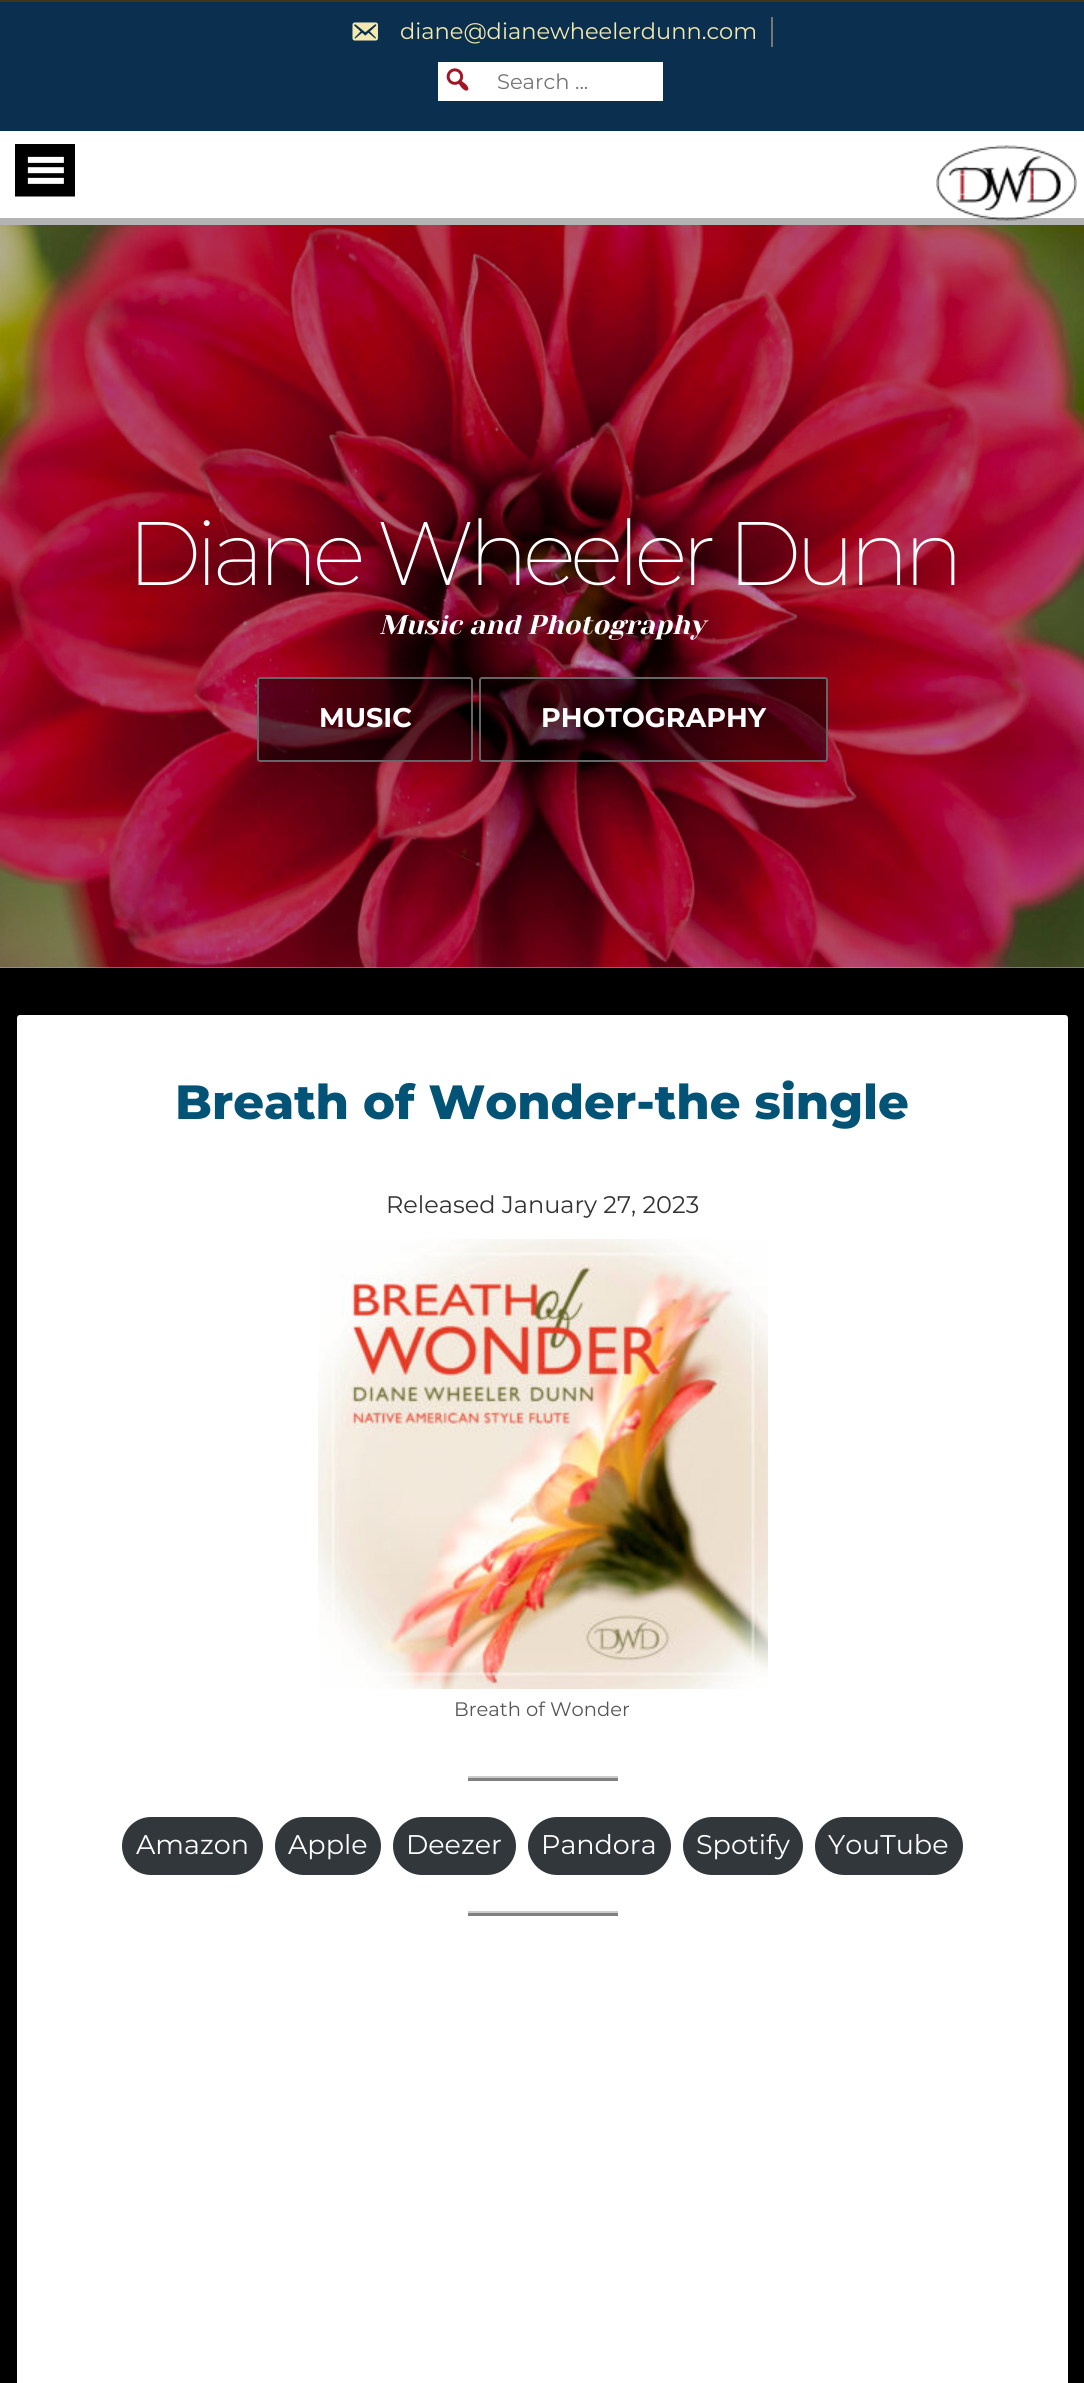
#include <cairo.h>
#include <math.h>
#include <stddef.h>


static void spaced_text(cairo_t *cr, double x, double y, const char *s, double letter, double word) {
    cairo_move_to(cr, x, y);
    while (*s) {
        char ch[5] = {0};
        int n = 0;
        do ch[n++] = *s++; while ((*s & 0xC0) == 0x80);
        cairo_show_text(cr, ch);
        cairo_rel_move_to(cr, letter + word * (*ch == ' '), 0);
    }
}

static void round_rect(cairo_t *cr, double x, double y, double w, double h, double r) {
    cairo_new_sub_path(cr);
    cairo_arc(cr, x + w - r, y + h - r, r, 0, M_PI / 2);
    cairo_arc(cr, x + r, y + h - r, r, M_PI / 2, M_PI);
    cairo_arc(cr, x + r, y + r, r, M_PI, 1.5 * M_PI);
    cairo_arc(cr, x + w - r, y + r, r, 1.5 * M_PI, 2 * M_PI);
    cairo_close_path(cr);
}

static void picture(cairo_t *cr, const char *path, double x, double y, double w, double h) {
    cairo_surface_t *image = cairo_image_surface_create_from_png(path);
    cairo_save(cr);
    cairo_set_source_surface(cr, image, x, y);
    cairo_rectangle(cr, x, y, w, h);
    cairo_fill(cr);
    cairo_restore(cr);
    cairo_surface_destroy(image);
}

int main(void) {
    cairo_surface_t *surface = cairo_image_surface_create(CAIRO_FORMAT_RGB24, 1084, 2383);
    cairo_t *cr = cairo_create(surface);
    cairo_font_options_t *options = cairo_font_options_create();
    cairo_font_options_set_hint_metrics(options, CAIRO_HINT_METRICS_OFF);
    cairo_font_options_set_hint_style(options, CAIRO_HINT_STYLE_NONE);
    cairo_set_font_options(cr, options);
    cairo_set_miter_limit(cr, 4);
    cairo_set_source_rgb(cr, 0, 0, 0);
    cairo_paint(cr);
    cairo_set_source_rgb(cr, 1, 1, 1);
    cairo_rectangle(cr, 0, 131, 1084, 87);
    cairo_fill(cr);
    cairo_set_source_rgb(cr, 0.702, 0.702, 0.702);
    cairo_rectangle(cr, 0, 218, 1084, 750);
    cairo_fill(cr);
    cairo_set_source_rgb(cr, 0.267, 0.204, 0.106);
    cairo_rectangle(cr, 0, 0, 1084, 2);
    cairo_fill(cr);
    cairo_set_source_rgb(cr, 0.043, 0.188, 0.31);
    cairo_rectangle(cr, 0, 2, 1084, 129);
    cairo_fill(cr);
    cairo_set_source_rgb(cr, 0.467, 0.467, 0.467);
    cairo_rectangle(cr, 771, 17, 2, 30);
    cairo_fill(cr);
    picture(cr, "img1.png", 352, 22, 26, 19);
    cairo_select_font_face(cr, "Montserrat", CAIRO_FONT_SLANT_NORMAL, CAIRO_FONT_WEIGHT_NORMAL);
    cairo_set_font_size(cr, 22.5);
    cairo_set_source_rgb(cr, 0.957, 0.914, 0.69);
    cairo_move_to(cr, 400, 39);
    cairo_show_text(cr, "diane@dianewheelerdunn.com");
    cairo_set_source_rgb(cr, 1, 1, 1);
    cairo_rectangle(cr, 438, 62, 225, 39);
    cairo_fill(cr);
    picture(cr, "img2.png", 446, 68, 23, 23);
    cairo_set_font_size(cr, 21);
    cairo_set_source_rgb(cr, 0.459, 0.459, 0.459);
    cairo_move_to(cr, 497, 89);
    cairo_show_text(cr, "Search ...");
    picture(cr, "img3.png", 15, 144, 60, 53);
    picture(cr, "img4.png", 936, 145, 141, 76);
    picture(cr, "img5.png", 0, 225, 1084, 743);
    cairo_select_font_face(cr, "Montserrat ExtraLight", CAIRO_FONT_SLANT_NORMAL, CAIRO_FONT_WEIGHT_NORMAL);
    cairo_set_font_size(cr, 90);
    cairo_set_source_rgb(cr, 1, 1, 1);
    spaced_text(cr, 127, 585, "Diane Wheeler Dunn", -6, 0);
    cairo_select_font_face(cr, "Yeseva One", CAIRO_FONT_SLANT_ITALIC, CAIRO_FONT_WEIGHT_NORMAL);
    cairo_set_font_size(cr, 27);
    cairo_move_to(cr, 379, 634);
    cairo_show_text(cr, "Music and Photography");
    cairo_set_source_rgba(cr, 0, 0, 0, 0.5);
    round_rect(cr, 258, 678, 214, 83, 2);
    cairo_fill_preserve(cr);
    cairo_set_source_rgb(cr, 0.4, 0.4, 0.4);
    cairo_stroke(cr);
    cairo_select_font_face(cr, "Montserrat", CAIRO_FONT_SLANT_NORMAL, CAIRO_FONT_WEIGHT_BOLD);
    cairo_set_source_rgb(cr, 1, 1, 1);
    cairo_move_to(cr, 319, 727);
    cairo_show_text(cr, "MUSIC");
    cairo_set_source_rgba(cr, 0, 0, 0, 0.5);
    round_rect(cr, 480, 678, 347, 83, 2);
    cairo_fill_preserve(cr);
    cairo_set_source_rgb(cr, 0.4, 0.4, 0.4);
    cairo_stroke(cr);
    cairo_set_source_rgb(cr, 1, 1, 1);
    cairo_move_to(cr, 541, 727);
    cairo_show_text(cr, "PHOTOGRAPHY");
    round_rect(cr, 16, 1014, 1053, 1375, 4);
    cairo_fill_preserve(cr);
    cairo_set_source_rgb(cr, 0, 0, 0);
    cairo_stroke(cr);
    cairo_select_font_face(cr, "Montserrat ExtraBold", CAIRO_FONT_SLANT_NORMAL, CAIRO_FONT_WEIGHT_NORMAL);
    cairo_set_font_size(cr, 48);
    cairo_set_source_rgb(cr, 0.012, 0.325, 0.467);
    cairo_move_to(cr, 175, 1119);
    cairo_show_text(cr, "Breath of Wonder-the single");
    cairo_select_font_face(cr, "Montserrat", CAIRO_FONT_SLANT_NORMAL, CAIRO_FONT_WEIGHT_NORMAL);
    cairo_set_font_size(cr, 24);
    cairo_set_source_rgb(cr, 0.2, 0.2, 0.2);
    cairo_move_to(cr, 386, 1213);
    cairo_show_text(cr, "Released January 27, 2023");
    picture(cr, "img6.png", 318, 1239, 450, 450);
    cairo_set_font_size(cr, 19.5);
    cairo_set_source_rgb(cr, 0.333, 0.333, 0.333);
    cairo_move_to(cr, 454, 1716);
    cairo_show_text(cr, "Breath of Wonder");
    cairo_set_source_rgb(cr, 0.8, 0.8, 0.8);
    cairo_rectangle(cr, 468, 1776, 150, 2);
    cairo_fill(cr);
    cairo_set_source_rgb(cr, 0.502, 0.502, 0.502);
    cairo_rectangle(cr, 468, 1778, 150, 3);
    cairo_fill(cr);
    cairo_set_source_rgb(cr, 0.196, 0.216, 0.235);
    round_rect(cr, 122, 1817, 141, 58, 29);
    cairo_fill(cr);
    cairo_set_font_size(cr, 27);
    cairo_set_source_rgb(cr, 1, 1, 1);
    cairo_move_to(cr, 136, 1854);
    cairo_show_text(cr, "Amazon");
    cairo_set_source_rgb(cr, 0.196, 0.216, 0.235);
    round_rect(cr, 275, 1817, 106, 58, 29);
    cairo_fill(cr);
    cairo_set_source_rgb(cr, 1, 1, 1);
    cairo_move_to(cr, 288, 1854);
    cairo_show_text(cr, "Apple");
    cairo_set_source_rgb(cr, 0.196, 0.216, 0.235);
    round_rect(cr, 393, 1817, 123, 58, 29);
    cairo_fill(cr);
    cairo_set_source_rgb(cr, 1, 1, 1);
    cairo_move_to(cr, 406, 1854);
    cairo_show_text(cr, "Deezer");
    cairo_set_source_rgb(cr, 0.196, 0.216, 0.235);
    round_rect(cr, 528, 1817, 143, 58, 29);
    cairo_fill(cr);
    cairo_set_source_rgb(cr, 1, 1, 1);
    cairo_move_to(cr, 541, 1854);
    cairo_show_text(cr, "Pandora");
    cairo_set_source_rgb(cr, 0.196, 0.216, 0.235);
    round_rect(cr, 683, 1817, 120, 58, 29);
    cairo_fill(cr);
    cairo_set_source_rgb(cr, 1, 1, 1);
    cairo_move_to(cr, 696, 1854);
    cairo_show_text(cr, "Spotify");
    cairo_set_source_rgb(cr, 0.196, 0.216, 0.235);
    round_rect(cr, 815, 1817, 148, 58, 29);
    cairo_fill(cr);
    cairo_set_source_rgb(cr, 1, 1, 1);
    cairo_move_to(cr, 828, 1854);
    cairo_show_text(cr, "YouTube");
    cairo_set_source_rgb(cr, 0.8, 0.8, 0.8);
    cairo_rectangle(cr, 468, 1911, 150, 2);
    cairo_fill(cr);
    cairo_set_source_rgb(cr, 0.502, 0.502, 0.502);
    cairo_rectangle(cr, 468, 1913, 150, 3);
    cairo_fill(cr);
    cairo_surface_write_to_png(surface, "page.png");
    cairo_font_options_destroy(options);
    cairo_destroy(cr);
    cairo_surface_destroy(surface);
    return 0;
}
